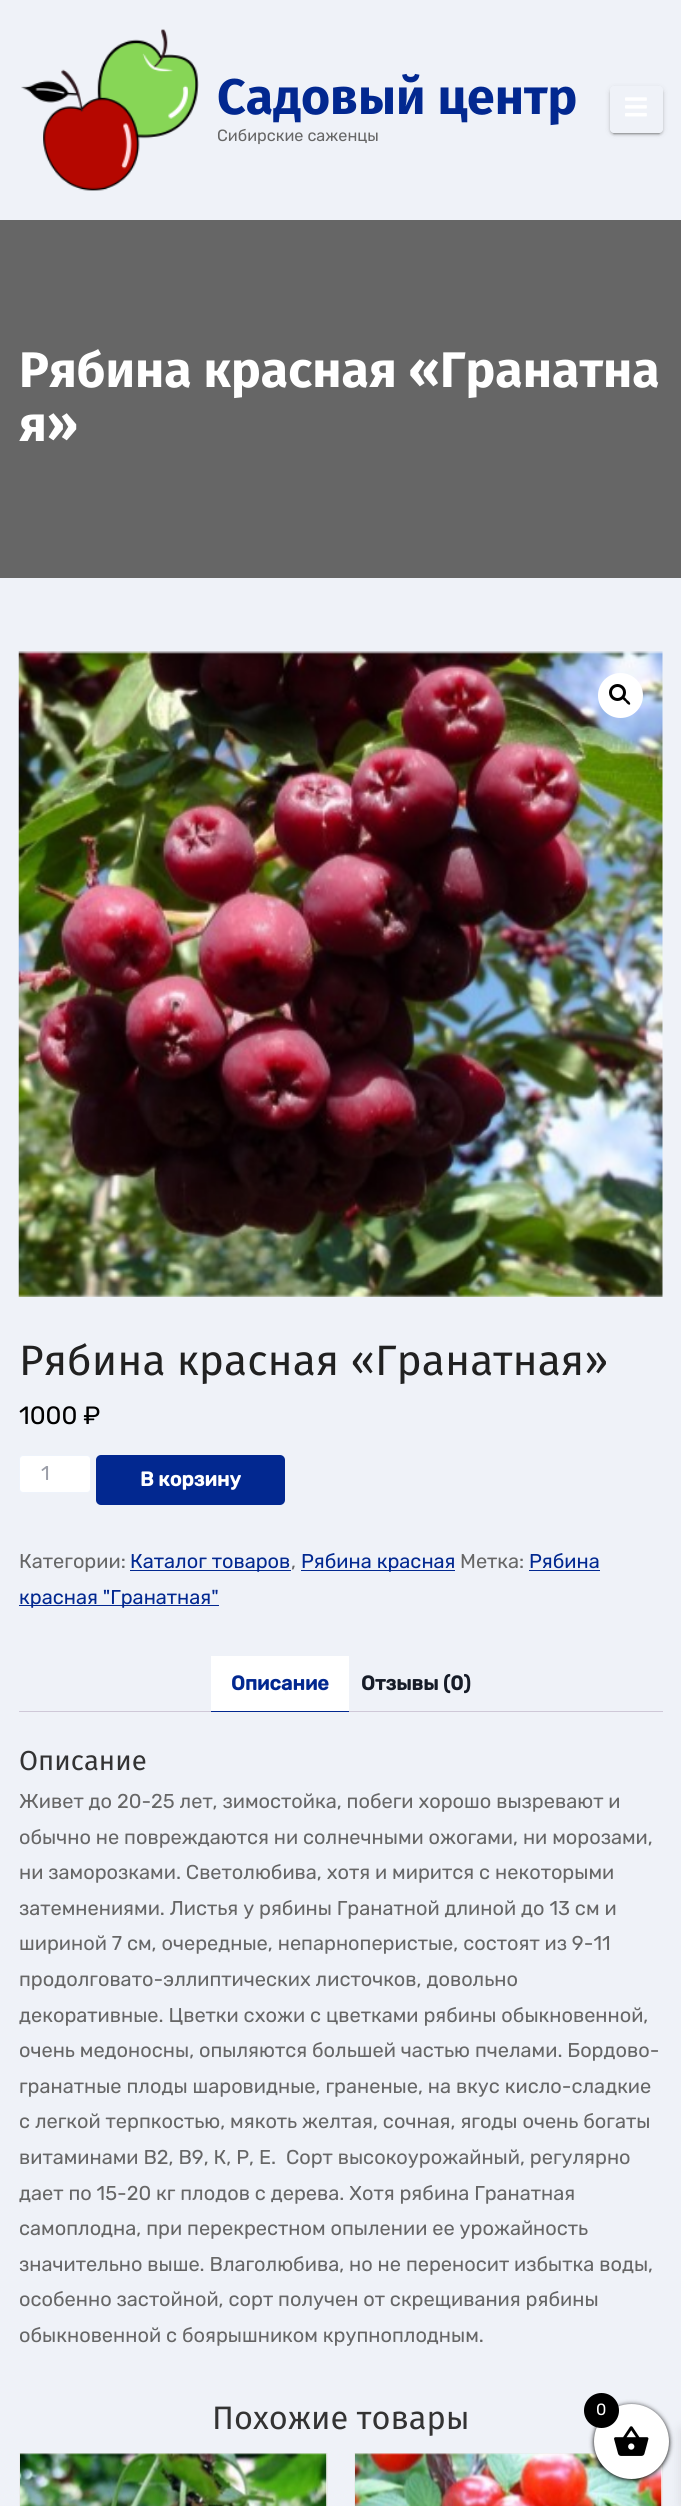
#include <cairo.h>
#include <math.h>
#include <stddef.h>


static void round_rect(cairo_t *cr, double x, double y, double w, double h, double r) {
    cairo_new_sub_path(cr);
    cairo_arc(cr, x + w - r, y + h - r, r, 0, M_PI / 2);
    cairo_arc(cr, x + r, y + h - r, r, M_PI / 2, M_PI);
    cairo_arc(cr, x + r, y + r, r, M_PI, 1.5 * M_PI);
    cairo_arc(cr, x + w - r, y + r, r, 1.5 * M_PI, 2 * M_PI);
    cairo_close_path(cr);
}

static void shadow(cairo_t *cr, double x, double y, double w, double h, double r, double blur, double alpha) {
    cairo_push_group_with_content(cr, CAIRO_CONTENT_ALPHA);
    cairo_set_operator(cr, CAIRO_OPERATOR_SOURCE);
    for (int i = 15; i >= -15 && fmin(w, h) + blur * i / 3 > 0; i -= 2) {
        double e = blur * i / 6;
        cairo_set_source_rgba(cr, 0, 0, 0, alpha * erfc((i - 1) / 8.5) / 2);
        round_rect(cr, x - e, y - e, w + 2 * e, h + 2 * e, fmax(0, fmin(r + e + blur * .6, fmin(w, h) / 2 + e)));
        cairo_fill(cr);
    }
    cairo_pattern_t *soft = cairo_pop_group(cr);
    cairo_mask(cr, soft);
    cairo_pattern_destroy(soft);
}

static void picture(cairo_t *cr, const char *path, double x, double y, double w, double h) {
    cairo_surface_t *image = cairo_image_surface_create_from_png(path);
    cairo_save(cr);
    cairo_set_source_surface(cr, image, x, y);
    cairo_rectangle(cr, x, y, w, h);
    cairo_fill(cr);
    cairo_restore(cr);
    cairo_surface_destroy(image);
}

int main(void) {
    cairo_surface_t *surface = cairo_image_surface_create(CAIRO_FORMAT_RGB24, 681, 2506);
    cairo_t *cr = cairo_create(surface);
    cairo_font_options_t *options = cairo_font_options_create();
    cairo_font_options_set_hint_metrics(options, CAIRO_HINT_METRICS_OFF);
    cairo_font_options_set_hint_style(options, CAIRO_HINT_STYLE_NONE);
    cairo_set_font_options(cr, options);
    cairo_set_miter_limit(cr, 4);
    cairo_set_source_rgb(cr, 0.937, 0.949, 0.969);
    cairo_paint(cr);
    picture(cr, "img1.png", 21, 29, 178, 162);
    cairo_select_font_face(cr, "Fira Sans", CAIRO_FONT_SLANT_NORMAL, CAIRO_FONT_WEIGHT_BOLD);
    cairo_set_font_size(cr, 50);
    cairo_set_source_rgb(cr, 0.008, 0.157, 0.565);
    cairo_move_to(cr, 217, 114);
    cairo_show_text(cr, "Cадовый центр");
    cairo_select_font_face(cr, "Rubik", CAIRO_FONT_SLANT_NORMAL, CAIRO_FONT_WEIGHT_NORMAL);
    cairo_set_font_size(cr, 16.25);
    cairo_set_source_rgb(cr, 0.4, 0.4, 0.4);
    cairo_move_to(cr, 217, 141);
    cairo_show_text(cr, "Сибирские саженцы");
    cairo_save(cr);
    cairo_set_fill_rule(cr, CAIRO_FILL_RULE_EVEN_ODD);
    cairo_new_path(cr);
    cairo_move_to(cr, 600, 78);
    cairo_line_to(cr, 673, 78);
    cairo_line_to(cr, 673, 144);
    cairo_line_to(cr, 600, 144);
    cairo_close_path(cr);
    cairo_move_to(cr, 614, 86);
    cairo_line_to(cr, 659, 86);
    cairo_curve_to(cr, 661, 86, 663, 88, 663, 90);
    cairo_line_to(cr, 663, 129);
    cairo_curve_to(cr, 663, 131, 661, 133, 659, 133);
    cairo_line_to(cr, 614, 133);
    cairo_curve_to(cr, 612, 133, 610, 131, 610, 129);
    cairo_line_to(cr, 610, 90);
    cairo_curve_to(cr, 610, 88, 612, 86, 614, 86);
    cairo_close_path(cr);
    cairo_clip(cr);
    cairo_set_source_rgb(cr, 0, 0, 0);
    shadow(cr, 610, 88, 53, 46, 4, 3, 0.12);
    cairo_restore(cr);
    cairo_save(cr);
    cairo_set_fill_rule(cr, CAIRO_FILL_RULE_EVEN_ODD);
    cairo_new_path(cr);
    cairo_move_to(cr, 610, 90);
    cairo_line_to(cr, 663, 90);
    cairo_line_to(cr, 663, 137);
    cairo_line_to(cr, 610, 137);
    cairo_close_path(cr);
    cairo_move_to(cr, 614, 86);
    cairo_line_to(cr, 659, 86);
    cairo_curve_to(cr, 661, 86, 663, 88, 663, 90);
    cairo_line_to(cr, 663, 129);
    cairo_curve_to(cr, 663, 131, 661, 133, 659, 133);
    cairo_line_to(cr, 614, 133);
    cairo_curve_to(cr, 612, 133, 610, 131, 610, 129);
    cairo_line_to(cr, 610, 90);
    cairo_curve_to(cr, 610, 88, 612, 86, 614, 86);
    cairo_close_path(cr);
    cairo_clip(cr);
    cairo_set_source_rgb(cr, 0, 0, 0);
    shadow(cr, 613, 93, 47, 41, 1, 0.5, 0.2);
    cairo_restore(cr);
    cairo_save(cr);
    cairo_set_fill_rule(cr, CAIRO_FILL_RULE_EVEN_ODD);
    cairo_new_path(cr);
    cairo_move_to(cr, 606, 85);
    cairo_line_to(cr, 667, 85);
    cairo_line_to(cr, 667, 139);
    cairo_line_to(cr, 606, 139);
    cairo_close_path(cr);
    cairo_move_to(cr, 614, 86);
    cairo_line_to(cr, 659, 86);
    cairo_curve_to(cr, 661, 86, 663, 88, 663, 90);
    cairo_line_to(cr, 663, 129);
    cairo_curve_to(cr, 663, 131, 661, 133, 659, 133);
    cairo_line_to(cr, 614, 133);
    cairo_curve_to(cr, 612, 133, 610, 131, 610, 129);
    cairo_line_to(cr, 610, 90);
    cairo_curve_to(cr, 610, 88, 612, 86, 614, 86);
    cairo_close_path(cr);
    cairo_clip(cr);
    cairo_set_source_rgb(cr, 0, 0, 0);
    shadow(cr, 610, 89, 53, 46, 4, 1, 0.14);
    cairo_restore(cr);
    picture(cr, "img2.png", 625, 97, 22, 20);
    cairo_rectangle(cr, 0, 220, 681, 358);
    cairo_fill(cr);
    cairo_select_font_face(cr, "Fira Sans", CAIRO_FONT_SLANT_NORMAL, CAIRO_FONT_WEIGHT_BOLD);
    cairo_set_font_size(cr, 50);
    cairo_set_source_rgb(cr, 1, 1, 1);
    cairo_move_to(cr, 19, 387);
    cairo_show_text(cr, "Рябина красная «Гранатна");
    cairo_move_to(cr, 19, 441);
    cairo_show_text(cr, "я»");
    picture(cr, "img3.png", 18, 651, 645, 646);
    cairo_arc(cr, 620.5, 695.5, 22.5, 0, 2 * M_PI);
    cairo_fill(cr);
    cairo_arc(cr, 617.5, 692.5, 7, 0, 2 * M_PI);
    cairo_set_source_rgb(cr, 0, 0, 0);
    cairo_set_line_width(cr, 3);
    cairo_stroke(cr);
    cairo_new_path(cr);
    cairo_move_to(cr, 622.5, 697);
    cairo_curve_to(cr, 624, 696, 626.5, 699, 627, 700);
    cairo_curve_to(cr, 628, 700.5, 631, 703, 630, 704.5);
    cairo_curve_to(cr, 628.5, 705.5, 626, 702.5, 625.5, 701.5);
    cairo_curve_to(cr, 624.5, 701, 621.5, 698.5, 622.5, 697);
    cairo_close_path(cr);
    cairo_fill(cr);
    cairo_select_font_face(cr, "Fira Sans", CAIRO_FONT_SLANT_NORMAL, CAIRO_FONT_WEIGHT_NORMAL);
    cairo_set_font_size(cr, 42.5);
    cairo_set_source_rgb(cr, 0.129, 0.129, 0.129);
    cairo_move_to(cr, 19, 1375);
    cairo_show_text(cr, "Рябина красная «Гранатная»");
    cairo_select_font_face(cr, "Rubik", CAIRO_FONT_SLANT_NORMAL, CAIRO_FONT_WEIGHT_NORMAL);
    cairo_set_font_size(cr, 25);
    cairo_set_source_rgb(cr, 0, 0, 0);
    cairo_move_to(cr, 19, 1424);
    cairo_show_text(cr, "1000 ₽");
    cairo_set_source_rgb(cr, 1, 1, 1);
    round_rect(cr, 19.5, 1455.5, 71, 37, 3.5);
    cairo_fill_preserve(cr);
    cairo_set_source_rgb(cr, 0.933, 0.953, 0.984);
    cairo_set_line_width(cr, 1);
    cairo_stroke(cr);
    cairo_set_font_size(cr, 20);
    cairo_set_source_rgb(cr, 0.608, 0.62, 0.659);
    cairo_move_to(cr, 41, 1480);
    cairo_show_text(cr, "1");
    cairo_set_source_rgb(cr, 0.008, 0.157, 0.565);
    round_rect(cr, 96, 1455, 189, 50, 5);
    cairo_fill(cr);
    cairo_select_font_face(cr, "Rubik", CAIRO_FONT_SLANT_NORMAL, CAIRO_FONT_WEIGHT_BOLD);
    cairo_set_source_rgb(cr, 1, 1, 1);
    cairo_move_to(cr, 140, 1486);
    cairo_show_text(cr, "В корзину");
    cairo_select_font_face(cr, "Rubik", CAIRO_FONT_SLANT_NORMAL, CAIRO_FONT_WEIGHT_NORMAL);
    cairo_set_source_rgb(cr, 0.4, 0.4, 0.4);
    cairo_move_to(cr, 19, 1568);
    cairo_show_text(cr, "Категории:");
    cairo_set_source_rgb(cr, 0.008, 0.157, 0.565);
    cairo_rectangle(cr, 130, 1570, 161, 1);
    cairo_fill(cr);
    cairo_move_to(cr, 130, 1568);
    cairo_show_text(cr, "Каталог товаров");
    cairo_set_source_rgb(cr, 0.4, 0.4, 0.4);
    cairo_move_to(cr, 291, 1568);
    cairo_show_text(cr, ",");
    cairo_set_source_rgb(cr, 0.008, 0.157, 0.565);
    cairo_rectangle(cr, 301, 1570, 154, 1);
    cairo_fill(cr);
    cairo_move_to(cr, 301, 1568);
    cairo_show_text(cr, "Рябина красная");
    cairo_set_source_rgb(cr, 0.4, 0.4, 0.4);
    cairo_move_to(cr, 460, 1568);
    cairo_show_text(cr, "Метка:");
    cairo_set_source_rgb(cr, 0.008, 0.157, 0.565);
    cairo_move_to(cr, 529, 1568);
    cairo_show_text(cr, "Рябина");
    cairo_rectangle(cr, 529, 1570, 71, 1);
    cairo_fill(cr);
    cairo_rectangle(cr, 19, 1605, 200, 1);
    cairo_fill(cr);
    cairo_move_to(cr, 19, 1604);
    cairo_show_text(cr, "красная \"Гранатная\"");
    cairo_set_source_rgb(cr, 1, 1, 1);
    cairo_rectangle(cr, 211, 1656, 138, 55);
    cairo_fill(cr);
    cairo_set_source_rgb(cr, 0.812, 0.784, 0.847);
    cairo_rectangle(cr, 19, 1711, 644, 1);
    cairo_fill(cr);
    cairo_set_source_rgb(cr, 0.008, 0.157, 0.565);
    cairo_rectangle(cr, 211, 1711, 138, 1);
    cairo_fill(cr);
    cairo_select_font_face(cr, "Rubik", CAIRO_FONT_SLANT_NORMAL, CAIRO_FONT_WEIGHT_BOLD);
    cairo_move_to(cr, 231, 1690);
    cairo_show_text(cr, "Описание");
    cairo_set_source_rgb(cr, 0.086, 0.11, 0.157);
    cairo_move_to(cr, 361, 1690);
    cairo_show_text(cr, "Отзывы (0)");
    cairo_select_font_face(cr, "Fira Sans", CAIRO_FONT_SLANT_NORMAL, CAIRO_FONT_WEIGHT_NORMAL);
    cairo_set_font_size(cr, 27.5);
    cairo_set_source_rgb(cr, 0.2, 0.2, 0.2);
    cairo_move_to(cr, 19, 1770);
    cairo_show_text(cr, "Описание");
    cairo_select_font_face(cr, "Rubik", CAIRO_FONT_SLANT_NORMAL, CAIRO_FONT_WEIGHT_NORMAL);
    cairo_set_font_size(cr, 20);
    cairo_set_source_rgb(cr, 0.4, 0.4, 0.4);
    cairo_move_to(cr, 19, 1808);
    cairo_show_text(cr, "Живет до 20-25 лет, зимостойка, побеги хорошо вызревают и");
    cairo_move_to(cr, 19, 1844);
    cairo_show_text(cr, "обычно не повреждаются ни солнечными ожогами, ни морозами,");
    cairo_move_to(cr, 19, 1879);
    cairo_show_text(cr, "ни заморозками. Светолюбива, хотя и мирится с некоторыми");
    cairo_move_to(cr, 19, 1915);
    cairo_show_text(cr, "затемнениями. Листья у рябины Гранатной длиной до 13 см и");
    cairo_move_to(cr, 19, 1950);
    cairo_show_text(cr, "шириной 7 см, очередные, непарноперистые, состоят из 9-11");
    cairo_move_to(cr, 19, 1986);
    cairo_show_text(cr, "продолговато-эллиптических листочков, довольно");
    cairo_move_to(cr, 19, 2022);
    cairo_show_text(cr, "декоративные. Цветки схожи с цветками рябины обыкновенной,");
    cairo_move_to(cr, 19, 2057);
    cairo_show_text(cr, "очень медоносны, опыляются большей частью пчелами. Бордово-");
    cairo_move_to(cr, 19, 2093);
    cairo_show_text(cr, "гранатные плоды шаровидные, граненые, на вкус кисло-сладкие");
    cairo_move_to(cr, 19, 2128);
    cairo_show_text(cr, "с легкой терпкостью, мякоть желтая, сочная, ягоды очень богаты");
    cairo_move_to(cr, 19, 2164);
    cairo_show_text(cr, "витаминами В2, В9, К, Р, Е.  Сорт высокоурожайный, регулярно");
    cairo_move_to(cr, 19, 2200);
    cairo_show_text(cr, "дает по 15-20 кг плодов с дерева. Хотя рябина Гранатная");
    cairo_move_to(cr, 19, 2235);
    cairo_show_text(cr, "самоплодна, при перекрестном опылении ее урожайность");
    cairo_move_to(cr, 19, 2271);
    cairo_show_text(cr, "значительно выше. Влаголюбива, но не переносит избытка воды,");
    cairo_move_to(cr, 19, 2306);
    cairo_show_text(cr, "особенно застойной, сорт получен от скрещивания рябины");
    cairo_move_to(cr, 19, 2342);
    cairo_show_text(cr, "обыкновенной с боярышником крупноплодным.");
    cairo_select_font_face(cr, "Fira Sans", CAIRO_FONT_SLANT_NORMAL, CAIRO_FONT_WEIGHT_NORMAL);
    cairo_set_font_size(cr, 32.5);
    cairo_set_source_rgb(cr, 0.2, 0.2, 0.2);
    cairo_move_to(cr, 212, 2429);
    cairo_show_text(cr, "Похожие товары");
    cairo_set_source_rgb(cr, 1, 1, 1);
    cairo_rectangle(cr, 19.5, 2453.5, 308, 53);
    cairo_fill_preserve(cr);
    cairo_set_source_rgb(cr, 0.918, 0.918, 0.918);
    cairo_stroke(cr);
    picture(cr, "img4.png", 20, 2453, 307, 53);
    cairo_set_source_rgb(cr, 1, 1, 1);
    cairo_rectangle(cr, 354.5, 2453.5, 308, 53);
    cairo_fill_preserve(cr);
    cairo_set_source_rgb(cr, 0.918, 0.918, 0.918);
    cairo_stroke(cr);
    picture(cr, "img5.png", 355, 2453, 307, 53);
    cairo_set_source_rgb(cr, 0, 0, 0);
    shadow(cr, 594, 2405, 75, 75, 37.5, 2.5, 1);
    shadow(cr, 681, 2430, 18, 75, 0, 6, 0.1);
    cairo_set_source_rgb(cr, 1, 1, 1);
    cairo_arc(cr, 631.5, 2441.5, 37.5, 0, 2 * M_PI);
    cairo_fill(cr);
    picture(cr, "img6.png", 614, 2426, 35, 30);
    cairo_set_source_rgb(cr, 0, 0, 0);
    cairo_arc(cr, 601.5, 2410.5, 17.5, 0, 2 * M_PI);
    cairo_fill(cr);
    cairo_select_font_face(cr, "Rubik", CAIRO_FONT_SLANT_NORMAL, CAIRO_FONT_WEIGHT_NORMAL);
    cairo_set_font_size(cr, 16.25);
    cairo_set_source_rgb(cr, 1, 1, 1);
    cairo_move_to(cr, 596, 2415);
    cairo_show_text(cr, "0");
    cairo_surface_write_to_png(surface, "page.png");
    cairo_font_options_destroy(options);
    cairo_destroy(cr);
    cairo_surface_destroy(surface);
    return 0;
}
